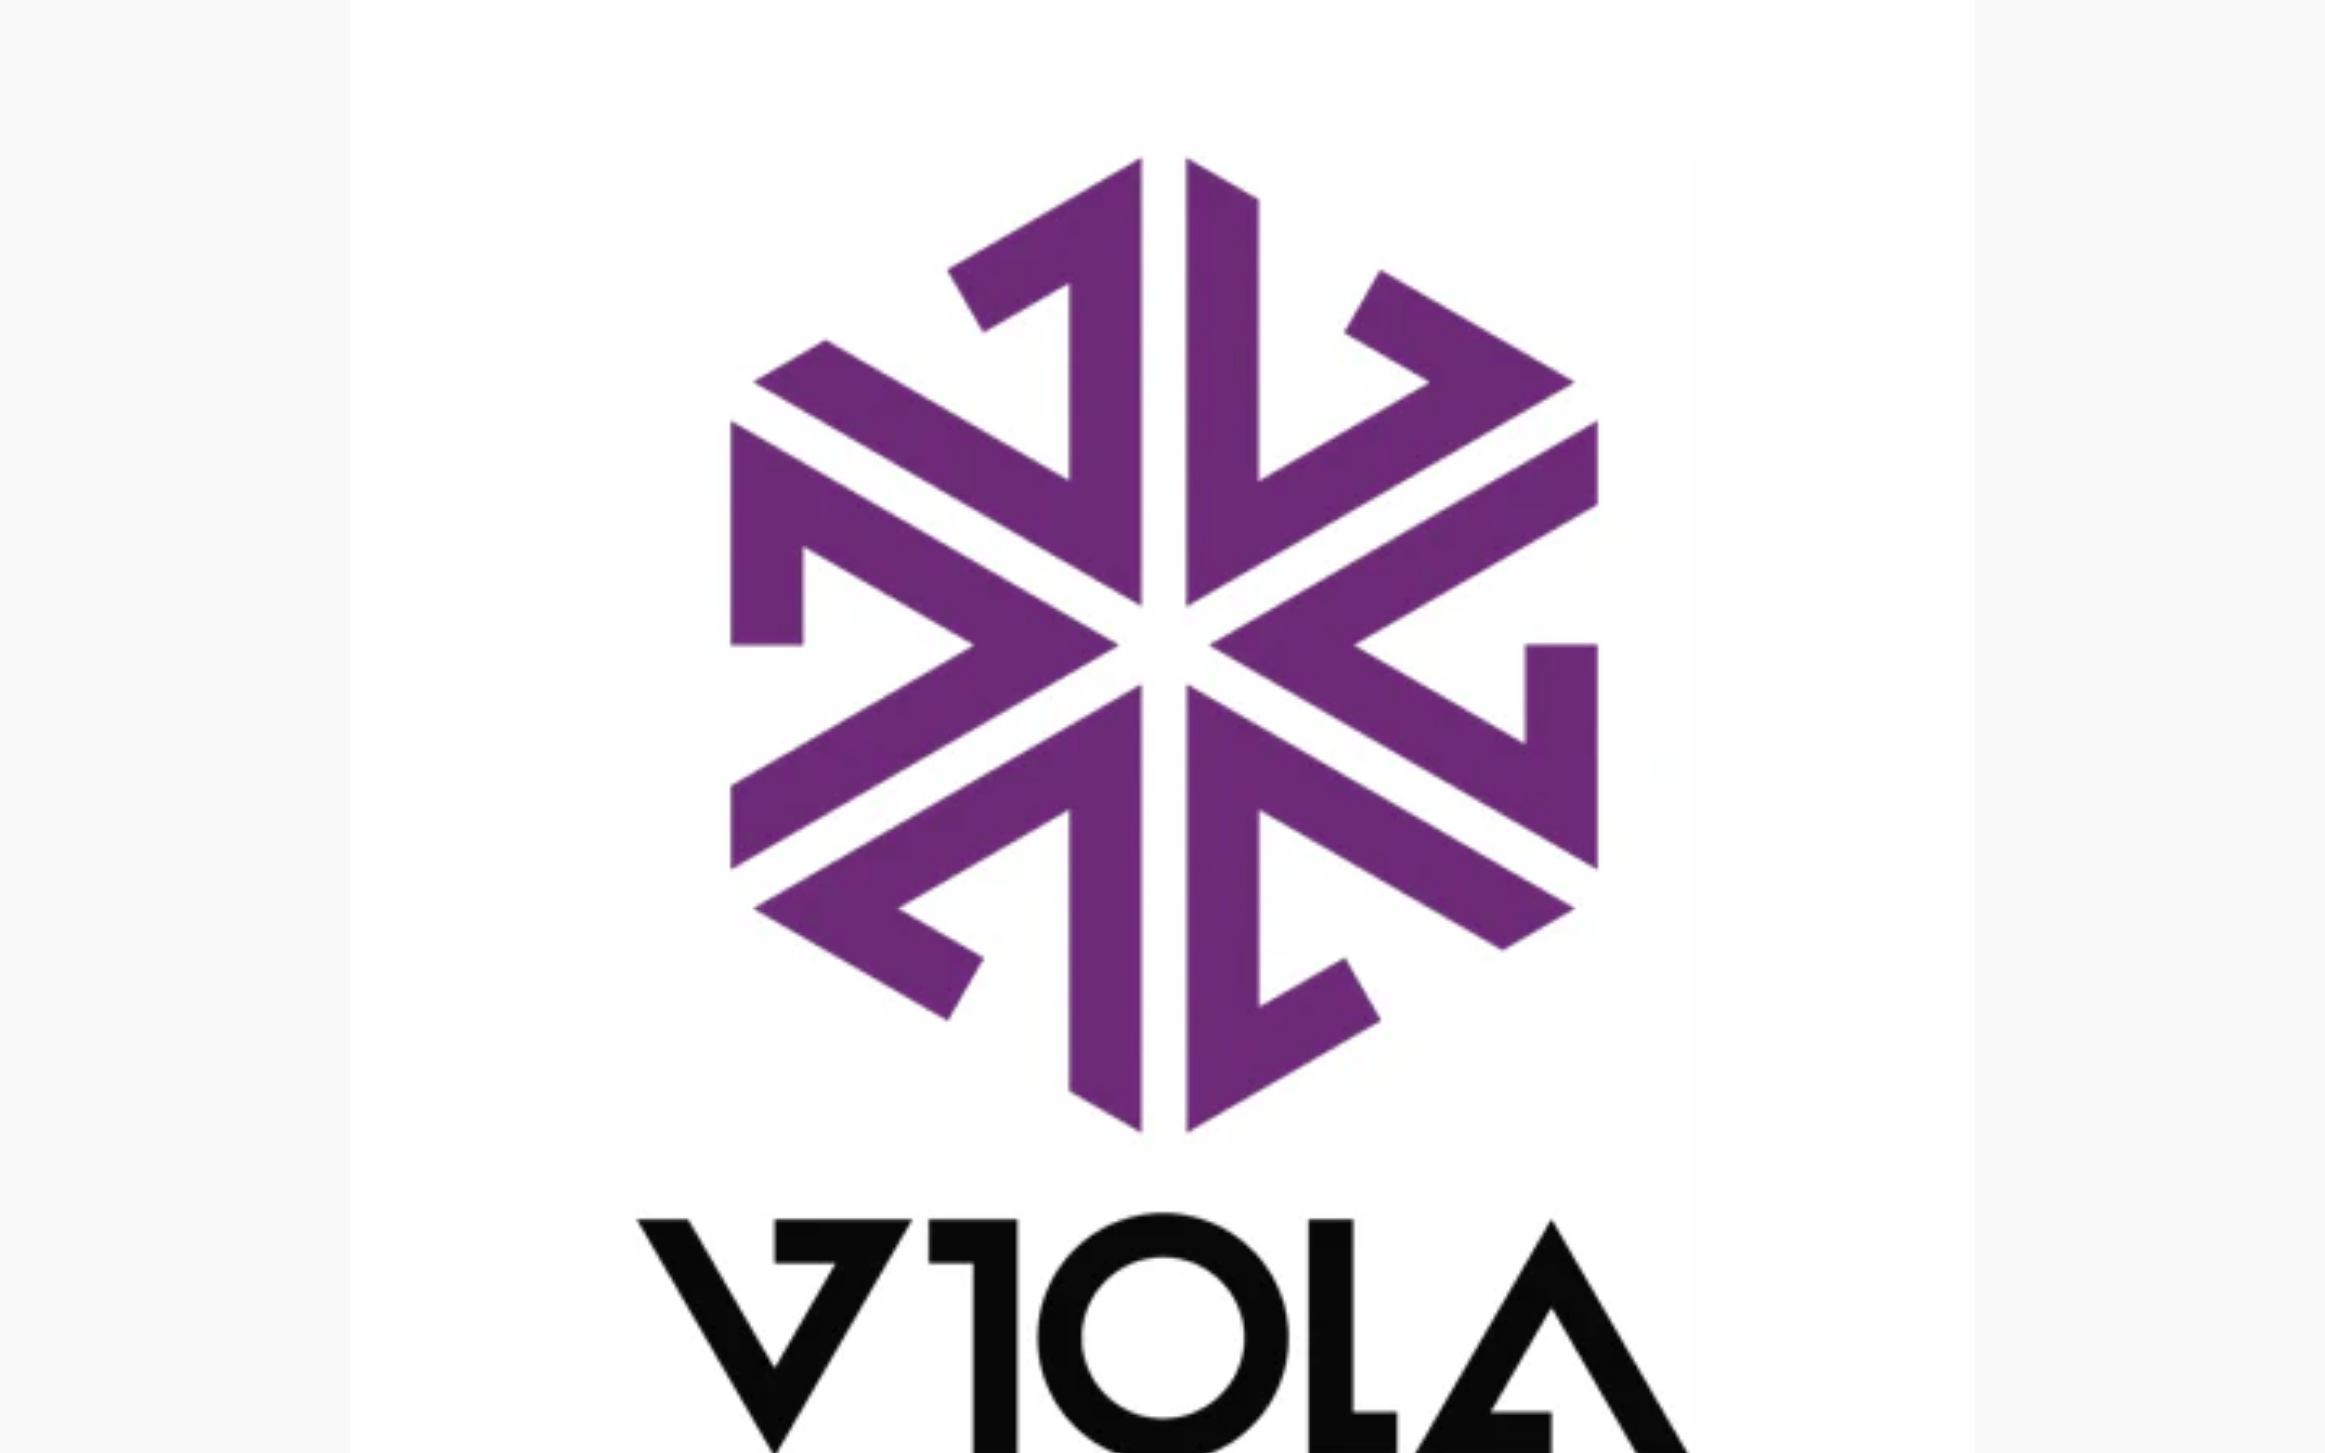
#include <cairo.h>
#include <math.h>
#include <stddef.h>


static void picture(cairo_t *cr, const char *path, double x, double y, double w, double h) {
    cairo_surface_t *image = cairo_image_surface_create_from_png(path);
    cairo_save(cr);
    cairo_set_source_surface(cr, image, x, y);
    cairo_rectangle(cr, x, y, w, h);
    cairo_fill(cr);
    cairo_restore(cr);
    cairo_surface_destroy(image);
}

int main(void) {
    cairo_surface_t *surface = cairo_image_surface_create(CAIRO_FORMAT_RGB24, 2325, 1453);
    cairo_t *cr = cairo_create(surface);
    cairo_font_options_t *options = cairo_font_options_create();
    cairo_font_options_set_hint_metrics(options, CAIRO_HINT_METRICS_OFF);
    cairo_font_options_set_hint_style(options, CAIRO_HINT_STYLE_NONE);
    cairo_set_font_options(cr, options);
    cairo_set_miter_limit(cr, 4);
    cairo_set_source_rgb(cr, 0.98, 0.976, 0.973);
    cairo_paint(cr);
    cairo_set_source_rgb(cr, 0.996, 0.996, 0.996);
    cairo_rectangle(cr, 350, 0, 1625, 1453);
    cairo_fill(cr);
    picture(cr, "img1.png", 635, 155, 1056, 1298);
    cairo_surface_write_to_png(surface, "page.png");
    cairo_font_options_destroy(options);
    cairo_destroy(cr);
    cairo_surface_destroy(surface);
    return 0;
}
